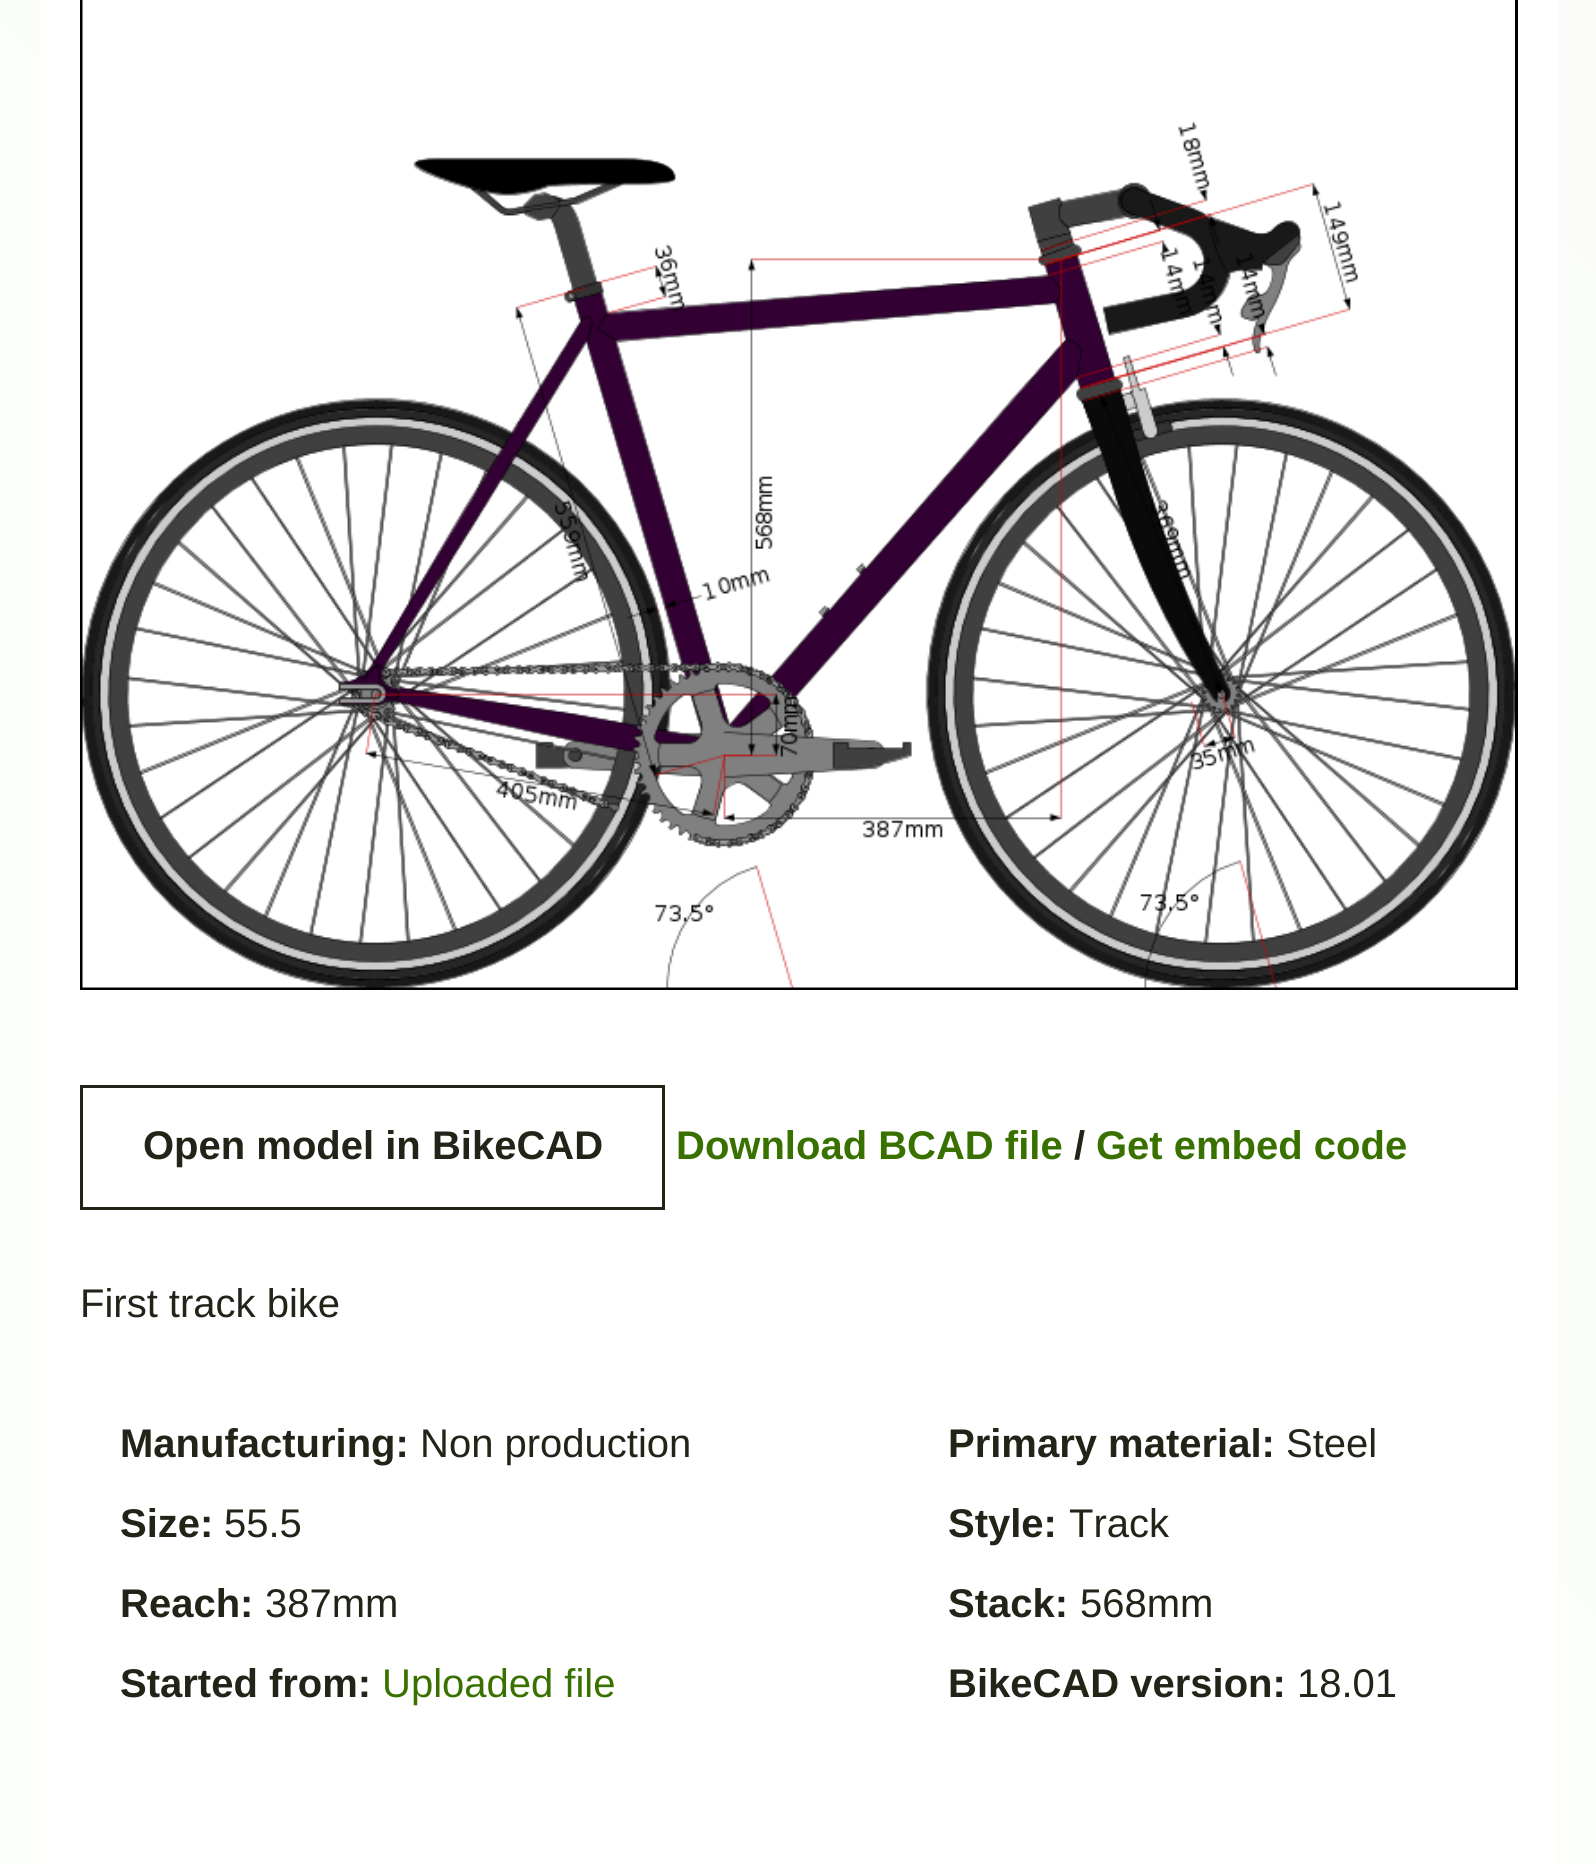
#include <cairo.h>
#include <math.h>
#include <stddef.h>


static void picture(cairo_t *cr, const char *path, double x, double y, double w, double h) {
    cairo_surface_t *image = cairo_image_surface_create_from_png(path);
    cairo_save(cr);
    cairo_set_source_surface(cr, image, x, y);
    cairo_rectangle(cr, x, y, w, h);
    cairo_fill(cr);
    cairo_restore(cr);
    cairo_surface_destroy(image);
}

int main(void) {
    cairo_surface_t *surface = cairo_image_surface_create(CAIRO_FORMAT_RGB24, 1596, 1865);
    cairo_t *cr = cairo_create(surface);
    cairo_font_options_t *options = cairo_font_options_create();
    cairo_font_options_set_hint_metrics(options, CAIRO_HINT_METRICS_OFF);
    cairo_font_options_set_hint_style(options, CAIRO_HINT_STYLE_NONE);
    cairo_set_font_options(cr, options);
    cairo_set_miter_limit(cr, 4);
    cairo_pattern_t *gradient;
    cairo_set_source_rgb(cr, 1, 1, 1);
    cairo_paint(cr);
    gradient = cairo_pattern_create_linear(-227, 1803, 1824, -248);
    cairo_pattern_add_color_stop_rgba(gradient, 0, 0.988, 1, 0.976, 1);
    cairo_pattern_add_color_stop_rgba(gradient, 1, 0.984, 0.988, 0.98, 1);
    cairo_set_source(cr, gradient);
    cairo_pattern_destroy(gradient);
    cairo_rectangle(cr, 0, 0, 1596, 1865);
    cairo_fill(cr);
    cairo_set_source_rgb(cr, 1, 1, 1);
    cairo_rectangle(cr, 40, 0, 1518, 1865);
    cairo_fill(cr);
    cairo_rectangle(cr, 81.5, -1.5, 1435, 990);
    cairo_set_source_rgb(cr, 0, 0, 0);
    cairo_set_line_width(cr, 3);
    cairo_stroke(cr);
    picture(cr, "img1.png", 82, 0, 1433, 988);
    cairo_rectangle(cr, 81.5, 1086.5, 582, 122);
    cairo_set_source_rgb(cr, 0.133, 0.141, 0.094);
    cairo_stroke(cr);
    cairo_select_font_face(cr, "Liberation Sans", CAIRO_FONT_SLANT_NORMAL, CAIRO_FONT_WEIGHT_BOLD);
    cairo_set_font_size(cr, 40);
    cairo_move_to(cr, 143, 1159);
    cairo_show_text(cr, "Open model in BikeCAD");
    cairo_set_source_rgb(cr, 0.224, 0.443, 0);
    cairo_move_to(cr, 676, 1159);
    cairo_show_text(cr, "Download BCAD file");
    cairo_set_source_rgb(cr, 0.133, 0.141, 0.094);
    cairo_move_to(cr, 1074, 1159);
    cairo_show_text(cr, "/");
    cairo_set_source_rgb(cr, 0.224, 0.443, 0);
    cairo_move_to(cr, 1096, 1159);
    cairo_show_text(cr, "Get embed code");
    cairo_select_font_face(cr, "Liberation Sans", CAIRO_FONT_SLANT_NORMAL, CAIRO_FONT_WEIGHT_NORMAL);
    cairo_set_source_rgb(cr, 0.133, 0.141, 0.094);
    cairo_move_to(cr, 80, 1317);
    cairo_show_text(cr, "First track bike");
    cairo_select_font_face(cr, "Liberation Sans", CAIRO_FONT_SLANT_NORMAL, CAIRO_FONT_WEIGHT_BOLD);
    cairo_move_to(cr, 120, 1457);
    cairo_show_text(cr, "Manufacturing:");
    cairo_select_font_face(cr, "Liberation Sans", CAIRO_FONT_SLANT_NORMAL, CAIRO_FONT_WEIGHT_NORMAL);
    cairo_move_to(cr, 420, 1457);
    cairo_show_text(cr, "Non production");
    cairo_select_font_face(cr, "Liberation Sans", CAIRO_FONT_SLANT_NORMAL, CAIRO_FONT_WEIGHT_BOLD);
    cairo_move_to(cr, 120, 1537);
    cairo_show_text(cr, "Size:");
    cairo_select_font_face(cr, "Liberation Sans", CAIRO_FONT_SLANT_NORMAL, CAIRO_FONT_WEIGHT_NORMAL);
    cairo_move_to(cr, 224, 1537);
    cairo_show_text(cr, "55.5");
    cairo_select_font_face(cr, "Liberation Sans", CAIRO_FONT_SLANT_NORMAL, CAIRO_FONT_WEIGHT_BOLD);
    cairo_move_to(cr, 120, 1617);
    cairo_show_text(cr, "Reach:");
    cairo_select_font_face(cr, "Liberation Sans", CAIRO_FONT_SLANT_NORMAL, CAIRO_FONT_WEIGHT_NORMAL);
    cairo_move_to(cr, 265, 1617);
    cairo_show_text(cr, "387mm");
    cairo_select_font_face(cr, "Liberation Sans", CAIRO_FONT_SLANT_NORMAL, CAIRO_FONT_WEIGHT_BOLD);
    cairo_move_to(cr, 120, 1697);
    cairo_show_text(cr, "Started from:");
    cairo_select_font_face(cr, "Liberation Sans", CAIRO_FONT_SLANT_NORMAL, CAIRO_FONT_WEIGHT_NORMAL);
    cairo_set_source_rgb(cr, 0.224, 0.443, 0);
    cairo_move_to(cr, 382, 1697);
    cairo_show_text(cr, "Uploaded file");
    cairo_select_font_face(cr, "Liberation Sans", CAIRO_FONT_SLANT_NORMAL, CAIRO_FONT_WEIGHT_BOLD);
    cairo_set_source_rgb(cr, 0.133, 0.141, 0.094);
    cairo_move_to(cr, 948, 1457);
    cairo_show_text(cr, "Primary material:");
    cairo_select_font_face(cr, "Liberation Sans", CAIRO_FONT_SLANT_NORMAL, CAIRO_FONT_WEIGHT_NORMAL);
    cairo_move_to(cr, 1286, 1457);
    cairo_show_text(cr, "Steel");
    cairo_select_font_face(cr, "Liberation Sans", CAIRO_FONT_SLANT_NORMAL, CAIRO_FONT_WEIGHT_BOLD);
    cairo_move_to(cr, 948, 1537);
    cairo_show_text(cr, "Style:");
    cairo_select_font_face(cr, "Liberation Sans", CAIRO_FONT_SLANT_NORMAL, CAIRO_FONT_WEIGHT_NORMAL);
    cairo_move_to(cr, 1069, 1537);
    cairo_show_text(cr, "Track");
    cairo_select_font_face(cr, "Liberation Sans", CAIRO_FONT_SLANT_NORMAL, CAIRO_FONT_WEIGHT_BOLD);
    cairo_move_to(cr, 948, 1617);
    cairo_show_text(cr, "Stack:");
    cairo_select_font_face(cr, "Liberation Sans", CAIRO_FONT_SLANT_NORMAL, CAIRO_FONT_WEIGHT_NORMAL);
    cairo_move_to(cr, 1080, 1617);
    cairo_show_text(cr, "568mm");
    cairo_select_font_face(cr, "Liberation Sans", CAIRO_FONT_SLANT_NORMAL, CAIRO_FONT_WEIGHT_BOLD);
    cairo_move_to(cr, 948, 1697);
    cairo_show_text(cr, "BikeCAD version:");
    cairo_select_font_face(cr, "Liberation Sans", CAIRO_FONT_SLANT_NORMAL, CAIRO_FONT_WEIGHT_NORMAL);
    cairo_move_to(cr, 1297, 1697);
    cairo_show_text(cr, "18.01");
    cairo_surface_write_to_png(surface, "page.png");
    cairo_font_options_destroy(options);
    cairo_destroy(cr);
    cairo_surface_destroy(surface);
    return 0;
}
